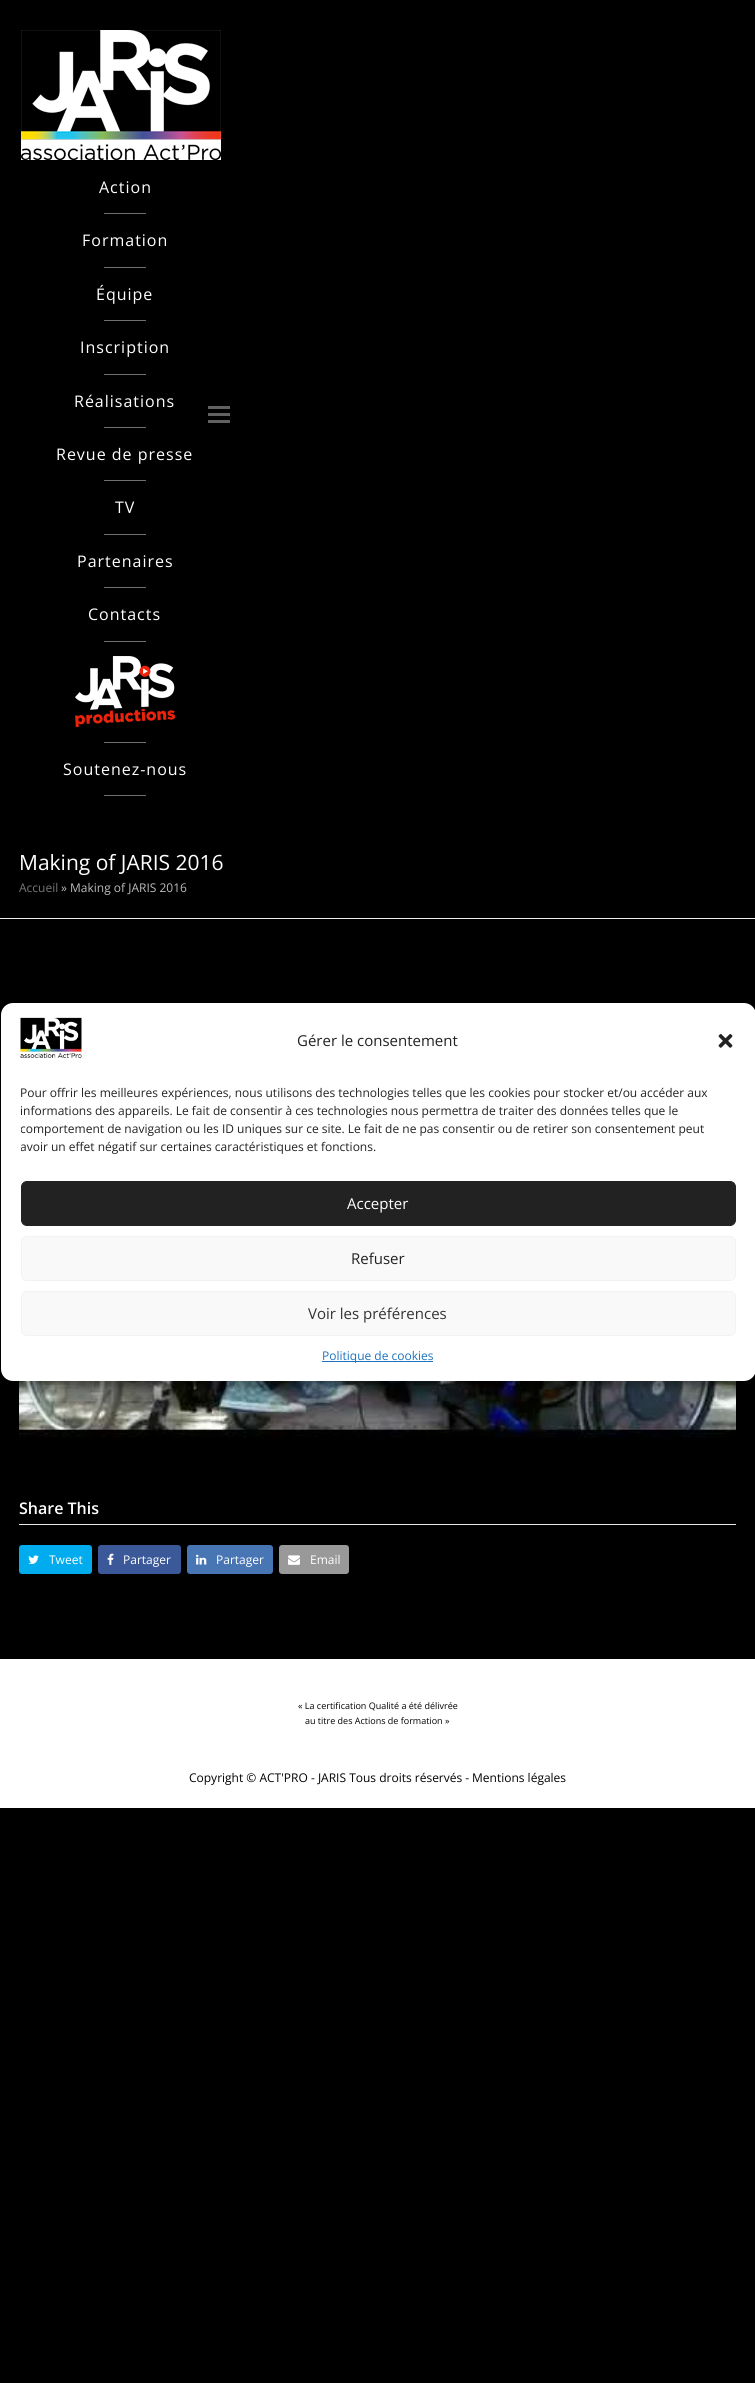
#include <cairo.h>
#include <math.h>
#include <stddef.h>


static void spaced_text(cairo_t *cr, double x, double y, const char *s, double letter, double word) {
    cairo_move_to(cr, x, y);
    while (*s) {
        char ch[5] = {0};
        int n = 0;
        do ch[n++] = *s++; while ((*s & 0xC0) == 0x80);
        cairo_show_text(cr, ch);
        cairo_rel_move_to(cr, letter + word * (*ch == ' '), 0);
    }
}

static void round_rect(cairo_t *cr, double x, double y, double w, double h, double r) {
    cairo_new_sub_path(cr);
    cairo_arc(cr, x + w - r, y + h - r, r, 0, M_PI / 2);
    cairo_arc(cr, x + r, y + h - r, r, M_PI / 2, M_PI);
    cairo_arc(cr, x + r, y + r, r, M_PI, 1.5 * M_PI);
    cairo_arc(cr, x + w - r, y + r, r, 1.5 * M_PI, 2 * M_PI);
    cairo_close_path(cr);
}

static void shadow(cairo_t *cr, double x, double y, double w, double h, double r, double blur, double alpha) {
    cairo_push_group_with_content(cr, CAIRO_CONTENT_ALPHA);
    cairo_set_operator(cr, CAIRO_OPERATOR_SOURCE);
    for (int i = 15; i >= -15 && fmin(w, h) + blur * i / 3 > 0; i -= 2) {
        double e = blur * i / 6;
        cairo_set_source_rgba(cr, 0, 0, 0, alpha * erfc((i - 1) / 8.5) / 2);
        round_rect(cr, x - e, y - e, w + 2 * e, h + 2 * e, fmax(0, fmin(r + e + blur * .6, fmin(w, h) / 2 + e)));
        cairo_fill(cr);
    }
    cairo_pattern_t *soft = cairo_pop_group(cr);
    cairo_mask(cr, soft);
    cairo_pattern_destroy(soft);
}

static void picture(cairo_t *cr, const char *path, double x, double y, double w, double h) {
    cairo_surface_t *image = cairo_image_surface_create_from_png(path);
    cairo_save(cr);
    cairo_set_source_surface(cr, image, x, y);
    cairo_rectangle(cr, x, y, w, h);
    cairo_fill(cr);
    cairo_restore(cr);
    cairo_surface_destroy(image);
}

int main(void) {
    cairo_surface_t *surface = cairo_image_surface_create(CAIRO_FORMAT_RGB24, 755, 2383);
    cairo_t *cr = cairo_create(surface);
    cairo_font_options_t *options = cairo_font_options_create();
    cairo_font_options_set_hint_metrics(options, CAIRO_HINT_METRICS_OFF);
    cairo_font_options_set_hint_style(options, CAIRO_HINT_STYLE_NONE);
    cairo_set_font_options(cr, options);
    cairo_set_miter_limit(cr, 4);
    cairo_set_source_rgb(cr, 0, 0, 0);
    cairo_paint(cr);
    picture(cr, "img1.png", 21, 30, 200, 130);
    cairo_select_font_face(cr, "Open Sans", CAIRO_FONT_SLANT_NORMAL, CAIRO_FONT_WEIGHT_NORMAL);
    cairo_set_font_size(cr, 16);
    cairo_set_source_rgb(cr, 1, 1, 1);
    spaced_text(cr, 99, 193, "Action", 1, 0);
    cairo_set_source_rgb(cr, 0.435, 0.435, 0.435);
    cairo_rectangle(cr, 104, 213, 42, 1);
    cairo_fill(cr);
    cairo_set_source_rgb(cr, 1, 1, 1);
    spaced_text(cr, 82, 246, "Formation", 1, 0);
    cairo_set_source_rgb(cr, 0.435, 0.435, 0.435);
    cairo_rectangle(cr, 104, 267, 42, 1);
    cairo_fill(cr);
    cairo_set_source_rgb(cr, 1, 1, 1);
    spaced_text(cr, 96, 300, "Équipe", 1, 0);
    cairo_set_source_rgb(cr, 0.435, 0.435, 0.435);
    cairo_rectangle(cr, 104, 320, 42, 1);
    cairo_fill(cr);
    cairo_set_source_rgb(cr, 1, 1, 1);
    spaced_text(cr, 80, 353, "Inscription", 1, 0);
    cairo_set_source_rgb(cr, 0.435, 0.435, 0.435);
    cairo_rectangle(cr, 104, 374, 42, 1);
    cairo_fill(cr);
    cairo_set_source_rgb(cr, 1, 1, 1);
    spaced_text(cr, 74, 407, "Réalisations", 1, 0);
    cairo_set_source_rgb(cr, 0.435, 0.435, 0.435);
    cairo_rectangle(cr, 104, 427, 42, 1);
    cairo_fill(cr);
    cairo_set_source_rgb(cr, 1, 1, 1);
    spaced_text(cr, 56, 460, "Revue de presse", 1, 0);
    cairo_set_source_rgb(cr, 0.435, 0.435, 0.435);
    cairo_rectangle(cr, 104, 480, 42, 1);
    cairo_fill(cr);
    cairo_set_source_rgb(cr, 1, 1, 1);
    spaced_text(cr, 115, 513, "TV", 1, 0);
    cairo_set_source_rgb(cr, 0.435, 0.435, 0.435);
    cairo_rectangle(cr, 104, 534, 42, 1);
    cairo_fill(cr);
    cairo_set_source_rgb(cr, 1, 1, 1);
    spaced_text(cr, 77, 567, "Partenaires", 1, 0);
    cairo_set_source_rgb(cr, 0.435, 0.435, 0.435);
    cairo_rectangle(cr, 104, 587, 42, 1);
    cairo_fill(cr);
    cairo_set_source_rgb(cr, 1, 1, 1);
    spaced_text(cr, 88, 620, "Contacts", 1, 0);
    cairo_set_source_rgb(cr, 0.435, 0.435, 0.435);
    cairo_rectangle(cr, 104, 641, 42, 1);
    cairo_fill(cr);
    picture(cr, "img2.png", 75, 656, 100, 71);
    cairo_rectangle(cr, 104, 742, 42, 1);
    cairo_fill(cr);
    cairo_set_source_rgb(cr, 1, 1, 1);
    spaced_text(cr, 63, 775, "Soutenez-nous", 1, 0);
    cairo_set_source_rgb(cr, 0.435, 0.435, 0.435);
    cairo_rectangle(cr, 104, 795, 42, 1);
    cairo_fill(cr);
    cairo_set_source_rgb(cr, 0.38, 0.38, 0.38);
    cairo_rectangle(cr, 208, 413, 22, 3);
    cairo_fill(cr);
    cairo_rectangle(cr, 208, 406, 22, 3);
    cairo_fill(cr);
    cairo_rectangle(cr, 208, 420, 22, 3);
    cairo_fill(cr);
    cairo_set_source_rgb(cr, 0.933, 0.933, 0.933);
    cairo_rectangle(cr, 0, 918, 755, 1);
    cairo_fill(cr);
    cairo_set_font_size(cr, 21);
    cairo_set_source_rgb(cr, 1, 1, 1);
    cairo_move_to(cr, 19, 870);
    cairo_show_text(cr, "Making of JARIS 2016");
    cairo_set_font_size(cr, 12);
    cairo_set_source_rgb(cr, 0.467, 0.467, 0.467);
    cairo_move_to(cr, 19, 892);
    cairo_show_text(cr, "Accueil");
    cairo_set_source_rgb(cr, 0.737, 0.737, 0.737);
    cairo_move_to(cr, 61, 892);
    cairo_show_text(cr, "» Making of JARIS 2016");
    picture(cr, "img3.png", 19, 959, 717, 538);
    cairo_set_source_rgb(cr, 0.91, 0.91, 0.91);
    cairo_rectangle(cr, 19, 1524, 717, 1);
    cairo_fill(cr);
    cairo_select_font_face(cr, "Open Sans SemiBold", CAIRO_FONT_SLANT_NORMAL, CAIRO_FONT_WEIGHT_NORMAL);
    cairo_set_font_size(cr, 16);
    cairo_set_source_rgb(cr, 1, 1, 1);
    cairo_move_to(cr, 19, 1514);
    cairo_show_text(cr, "Share This");
    cairo_set_source_rgb(cr, 0, 0.675, 0.929);
    round_rect(cr, 19, 1545, 73, 29, 3);
    cairo_fill(cr);
    picture(cr, "img4.png", 28, 1555, 11, 9);
    cairo_select_font_face(cr, "Open Sans", CAIRO_FONT_SLANT_NORMAL, CAIRO_FONT_WEIGHT_NORMAL);
    cairo_set_font_size(cr, 12);
    cairo_set_source_rgb(cr, 1, 1, 1);
    cairo_move_to(cr, 49, 1564);
    cairo_show_text(cr, "Tweet");
    cairo_set_source_rgb(cr, 0.231, 0.349, 0.596);
    round_rect(cr, 98, 1545, 83, 29, 3);
    cairo_fill(cr);
    picture(cr, "img5.png", 107, 1553, 7, 12);
    cairo_set_source_rgb(cr, 1, 1, 1);
    cairo_move_to(cr, 123, 1564);
    cairo_show_text(cr, "Partager");
    cairo_set_source_rgb(cr, 0.282, 0.459, 0.706);
    round_rect(cr, 187, 1545, 86, 29, 3);
    cairo_fill(cr);
    picture(cr, "img6.png", 196, 1554, 11, 11);
    cairo_set_source_rgb(cr, 1, 1, 1);
    cairo_move_to(cr, 216, 1564);
    cairo_show_text(cr, "Partager");
    cairo_set_source_rgb(cr, 0.6, 0.6, 0.6);
    round_rect(cr, 279, 1545, 70, 29, 3);
    cairo_fill(cr);
    picture(cr, "img7.png", 288, 1555, 12, 10);
    cairo_set_source_rgb(cr, 1, 1, 1);
    cairo_move_to(cr, 310, 1564);
    cairo_show_text(cr, "Email");
    cairo_rectangle(cr, 0, 1659, 755, 149);
    cairo_fill(cr);
    cairo_set_font_size(cr, 9);
    cairo_set_source_rgb(cr, 0.008, 0.008, 0.008);
    cairo_move_to(cr, 298, 1709);
    cairo_show_text(cr, "« La certification Qualité a été délivrée");
    cairo_move_to(cr, 305, 1724);
    cairo_show_text(cr, "au titre des Actions de formation »");
    cairo_set_font_size(cr, 12);
    cairo_move_to(cr, 189, 1782);
    cairo_show_text(cr, "Copyright © ACT'PRO - JARIS Tous droits réservés -");
    cairo_move_to(cr, 472, 1782);
    cairo_show_text(cr, "Mentions légales");
    cairo_save(cr);
    cairo_set_fill_rule(cr, CAIRO_FILL_RULE_EVEN_ODD);
    cairo_new_path(cr);
    cairo_move_to(cr, 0, 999);
    cairo_line_to(cr, 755, 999);
    cairo_line_to(cr, 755, 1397);
    cairo_line_to(cr, 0, 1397);
    cairo_close_path(cr);
    cairo_move_to(cr, 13, 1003);
    cairo_line_to(cr, 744, 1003);
    cairo_curve_to(cr, 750.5, 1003, 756, 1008.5, 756, 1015);
    cairo_line_to(cr, 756, 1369);
    cairo_curve_to(cr, 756, 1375.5, 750.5, 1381, 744, 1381);
    cairo_line_to(cr, 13, 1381);
    cairo_curve_to(cr, 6.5, 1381, 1, 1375.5, 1, 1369);
    cairo_line_to(cr, 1, 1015);
    cairo_curve_to(cr, 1, 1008.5, 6.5, 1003, 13, 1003);
    cairo_close_path(cr);
    cairo_clip(cr);
    cairo_set_source_rgb(cr, 0, 0, 0);
    shadow(cr, 1, 1009, 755, 378, 12, 3, 0.23);
    cairo_restore(cr);
    cairo_save(cr);
    cairo_set_fill_rule(cr, CAIRO_FILL_RULE_EVEN_ODD);
    cairo_new_path(cr);
    cairo_move_to(cr, 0, 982);
    cairo_line_to(cr, 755, 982);
    cairo_line_to(cr, 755, 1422);
    cairo_line_to(cr, 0, 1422);
    cairo_close_path(cr);
    cairo_move_to(cr, 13, 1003);
    cairo_line_to(cr, 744, 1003);
    cairo_curve_to(cr, 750.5, 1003, 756, 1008.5, 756, 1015);
    cairo_line_to(cr, 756, 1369);
    cairo_curve_to(cr, 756, 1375.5, 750.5, 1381, 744, 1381);
    cairo_line_to(cr, 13, 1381);
    cairo_curve_to(cr, 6.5, 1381, 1, 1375.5, 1, 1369);
    cairo_line_to(cr, 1, 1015);
    cairo_curve_to(cr, 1, 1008.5, 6.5, 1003, 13, 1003);
    cairo_close_path(cr);
    cairo_clip(cr);
    cairo_set_source_rgb(cr, 0, 0, 0);
    shadow(cr, 1, 1013, 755, 378, 12, 10, 0.19);
    cairo_restore(cr);
    cairo_set_source_rgb(cr, 1, 1, 1);
    round_rect(cr, 1, 1003, 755, 378, 12);
    cairo_fill(cr);
    picture(cr, "img8.png", 20, 1017, 62, 41);
    cairo_set_font_size(cr, 15);
    cairo_set_source_rgb(cr, 0.133, 0.133, 0.133);
    cairo_move_to(cr, 297, 1046);
    cairo_show_text(cr, "Gérer le consentement");
    picture(cr, "img9.png", 718, 1034, 15, 14);
    cairo_set_font_size(cr, 12);
    cairo_move_to(cr, 20, 1097);
    cairo_show_text(cr, "Pour offrir les meilleures expériences, nous utilisons des technologies telles que les cookies pour stocker et/ou accéder aux");
    cairo_move_to(cr, 20, 1115);
    cairo_show_text(cr, "informations des appareils. Le fait de consentir à ces technologies nous permettra de traiter des données telles que le");
    cairo_save(cr);
    cairo_rectangle(cr, 21, 1084, 715, 77);
    cairo_clip(cr);
    cairo_move_to(cr, 20, 1133);
    cairo_show_text(cr, "comportement de navigation ou les ID uniques sur ce site. Le fait de ne pas consentir ou de retirer son consentement peut");
    cairo_move_to(cr, 20, 1151);
    cairo_show_text(cr, "avoir un effet négatif sur certaines caractéristiques et fonctions.");
    cairo_restore(cr);
    round_rect(cr, 21.5, 1181.5, 714, 44, 5.5);
    cairo_fill_preserve(cr);
    cairo_set_line_width(cr, 1);
    cairo_stroke(cr);
    cairo_set_font_size(cr, 15);
    cairo_set_source_rgb(cr, 1, 1, 1);
    cairo_move_to(cr, 347, 1209);
    cairo_show_text(cr, "Accepter");
    cairo_set_source_rgb(cr, 0.976, 0.976, 0.976);
    round_rect(cr, 21.5, 1236.5, 714, 44, 5.5);
    cairo_fill_preserve(cr);
    cairo_set_source_rgb(cr, 0.949, 0.949, 0.949);
    cairo_stroke(cr);
    cairo_set_source_rgb(cr, 0.133, 0.133, 0.133);
    cairo_move_to(cr, 351, 1264);
    cairo_show_text(cr, "Refuser");
    cairo_set_source_rgb(cr, 0.976, 0.976, 0.976);
    round_rect(cr, 21.5, 1291.5, 714, 44, 5.5);
    cairo_fill_preserve(cr);
    cairo_set_source_rgb(cr, 0.949, 0.949, 0.949);
    cairo_stroke(cr);
    cairo_set_source_rgb(cr, 0.2, 0.2, 0.2);
    cairo_move_to(cr, 308, 1319);
    cairo_show_text(cr, "Voir les préférences");
    cairo_set_source_rgb(cr, 0.118, 0.451, 0.745);
    cairo_rectangle(cr, 322, 1361, 111, 1);
    cairo_fill(cr);
    cairo_set_font_size(cr, 12);
    cairo_move_to(cr, 322, 1360);
    cairo_show_text(cr, "Politique de cookies");
    cairo_surface_write_to_png(surface, "page.png");
    cairo_font_options_destroy(options);
    cairo_destroy(cr);
    cairo_surface_destroy(surface);
    return 0;
}
